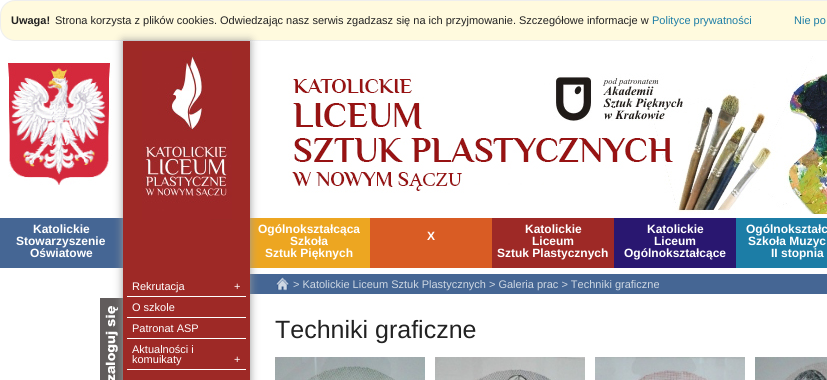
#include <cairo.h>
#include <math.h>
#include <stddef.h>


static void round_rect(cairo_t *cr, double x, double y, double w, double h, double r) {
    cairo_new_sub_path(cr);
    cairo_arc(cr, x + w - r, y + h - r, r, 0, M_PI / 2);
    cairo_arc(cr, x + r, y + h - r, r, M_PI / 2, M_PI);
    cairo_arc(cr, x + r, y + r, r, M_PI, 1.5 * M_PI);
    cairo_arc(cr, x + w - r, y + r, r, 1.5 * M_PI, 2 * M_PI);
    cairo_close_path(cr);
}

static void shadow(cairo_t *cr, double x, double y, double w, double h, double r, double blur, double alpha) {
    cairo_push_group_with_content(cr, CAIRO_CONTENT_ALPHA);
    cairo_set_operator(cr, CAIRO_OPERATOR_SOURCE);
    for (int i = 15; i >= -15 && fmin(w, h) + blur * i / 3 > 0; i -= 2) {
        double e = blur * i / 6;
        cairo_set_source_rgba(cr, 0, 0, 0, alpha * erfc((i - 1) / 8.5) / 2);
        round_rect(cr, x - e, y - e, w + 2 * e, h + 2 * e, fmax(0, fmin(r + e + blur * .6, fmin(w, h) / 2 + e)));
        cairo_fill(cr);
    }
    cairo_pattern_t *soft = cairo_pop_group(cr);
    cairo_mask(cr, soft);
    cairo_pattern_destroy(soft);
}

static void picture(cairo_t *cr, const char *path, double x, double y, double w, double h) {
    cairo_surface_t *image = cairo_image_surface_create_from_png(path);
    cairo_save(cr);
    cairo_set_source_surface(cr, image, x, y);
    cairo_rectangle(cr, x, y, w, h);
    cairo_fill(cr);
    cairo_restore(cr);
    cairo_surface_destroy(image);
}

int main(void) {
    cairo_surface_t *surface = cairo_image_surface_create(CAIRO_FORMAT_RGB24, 827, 380);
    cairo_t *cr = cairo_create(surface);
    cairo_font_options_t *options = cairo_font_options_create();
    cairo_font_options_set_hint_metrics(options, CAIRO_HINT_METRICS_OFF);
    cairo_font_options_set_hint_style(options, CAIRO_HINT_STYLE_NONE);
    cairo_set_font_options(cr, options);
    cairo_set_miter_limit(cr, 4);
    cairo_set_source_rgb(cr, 1, 1, 1);
    cairo_paint(cr);
    cairo_set_source_rgb(cr, 1, 0.98, 0.871);
    round_rect(cr, 0.5, 0.5, 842, 40, 14.5);
    cairo_fill_preserve(cr);
    cairo_set_source_rgb(cr, 0.933, 0.933, 0.933);
    cairo_set_line_width(cr, 1);
    cairo_stroke(cr);
    cairo_select_font_face(cr, "Liberation Sans", CAIRO_FONT_SLANT_NORMAL, CAIRO_FONT_WEIGHT_BOLD);
    cairo_set_font_size(cr, 11);
    cairo_set_source_rgb(cr, 0.133, 0.133, 0.133);
    cairo_move_to(cr, 11, 24);
    cairo_show_text(cr, "Uwaga!");
    cairo_select_font_face(cr, "Liberation Sans", CAIRO_FONT_SLANT_NORMAL, CAIRO_FONT_WEIGHT_NORMAL);
    cairo_move_to(cr, 55, 24);
    cairo_show_text(cr, "Strona korzysta z plików cookies. Odwiedzając nasz serwis zgadzasz się na ich przyjmowanie. Szczegółowe informacje w");
    cairo_set_source_rgb(cr, 0.11, 0.49, 0.651);
    cairo_move_to(cr, 652, 24);
    cairo_show_text(cr, "Polityce prywatności");
    cairo_move_to(cr, 794, 24);
    cairo_show_text(cr, "Nie po");
    picture(cr, "img1.png", 8, 56, 819, 158);
    cairo_set_source_rgb(cr, 0.271, 0.4, 0.58);
    cairo_rectangle(cr, 0, 218, 123, 50);
    cairo_fill(cr);
    cairo_select_font_face(cr, "Liberation Sans", CAIRO_FONT_SLANT_NORMAL, CAIRO_FONT_WEIGHT_BOLD);
    cairo_set_font_size(cr, 12);
    cairo_set_source_rgb(cr, 1, 1, 1);
    cairo_move_to(cr, 33, 233);
    cairo_show_text(cr, "Katolickie");
    cairo_move_to(cr, 16, 245);
    cairo_show_text(cr, "Stowarzyszenie");
    cairo_move_to(cr, 30, 257);
    cairo_show_text(cr, "Oświatowe");
    cairo_set_source_rgb(cr, 0.929, 0.651, 0.129);
    cairo_rectangle(cr, 250, 218, 120, 50);
    cairo_fill(cr);
    cairo_set_source_rgb(cr, 1, 1, 1);
    cairo_move_to(cr, 258, 233);
    cairo_show_text(cr, "Ogólnokształcąca");
    cairo_move_to(cr, 290, 245);
    cairo_show_text(cr, "Szkoła");
    cairo_move_to(cr, 265, 257);
    cairo_show_text(cr, "Sztuk Pięknych");
    cairo_set_source_rgb(cr, 0.851, 0.361, 0.141);
    cairo_rectangle(cr, 370, 218, 122, 50);
    cairo_fill(cr);
    cairo_set_source_rgb(cr, 1, 1, 1);
    cairo_move_to(cr, 427, 240);
    cairo_show_text(cr, "X");
    cairo_set_source_rgb(cr, 0.62, 0.161, 0.149);
    cairo_rectangle(cr, 492, 218, 122, 50);
    cairo_fill(cr);
    cairo_set_source_rgb(cr, 1, 1, 1);
    cairo_move_to(cr, 525, 233);
    cairo_show_text(cr, "Katolickie");
    cairo_move_to(cr, 532, 245);
    cairo_show_text(cr, "Liceum");
    cairo_move_to(cr, 497, 257);
    cairo_show_text(cr, "Sztuk Plastycznych");
    cairo_set_source_rgb(cr, 0.161, 0.09, 0.439);
    cairo_rectangle(cr, 614, 218, 122, 50);
    cairo_fill(cr);
    cairo_set_source_rgb(cr, 1, 1, 1);
    cairo_move_to(cr, 647, 233);
    cairo_show_text(cr, "Katolickie");
    cairo_move_to(cr, 654, 245);
    cairo_show_text(cr, "Liceum");
    cairo_move_to(cr, 624, 257);
    cairo_show_text(cr, "Ogólnokształcące");
    cairo_set_source_rgb(cr, 0.11, 0.49, 0.651);
    cairo_rectangle(cr, 736, 218, 91, 50);
    cairo_fill(cr);
    cairo_set_source_rgb(cr, 1, 1, 1);
    cairo_move_to(cr, 746, 233);
    cairo_show_text(cr, "Ogólnokształc");
    cairo_move_to(cr, 748, 245);
    cairo_show_text(cr, "Szkoła Muzyc");
    cairo_move_to(cr, 771, 257);
    cairo_show_text(cr, "II stopnia");
    cairo_set_source_rgb(cr, 0.38, 0.361, 0.361);
    cairo_rectangle(cr, 100, 298, 23, 82);
    cairo_fill(cr);
    picture(cr, "img2.png", 105, 306, 13, 74);
    cairo_set_source_rgb(cr, 0.271, 0.4, 0.58);
    cairo_rectangle(cr, 250, 274, 577, 20);
    cairo_fill(cr);
    cairo_set_source_rgb(cr, 0.6, 0.6, 0.6);
    shadow(cr, 123, 41, 127, 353, 0, 4.5, 1);
    cairo_set_source_rgb(cr, 0.62, 0.161, 0.149);
    cairo_rectangle(cr, 123, 41, 127, 339);
    cairo_fill(cr);
    picture(cr, "img3.png", 142, 51, 90, 169);
    cairo_set_source_rgb(cr, 1, 1, 1);
    cairo_rectangle(cr, 127, 296, 119, 1);
    cairo_fill(cr);
    cairo_select_font_face(cr, "Liberation Sans", CAIRO_FONT_SLANT_NORMAL, CAIRO_FONT_WEIGHT_NORMAL);
    cairo_set_font_size(cr, 11);
    cairo_move_to(cr, 132, 290);
    cairo_show_text(cr, "Rekrutacja");
    cairo_move_to(cr, 234, 290);
    cairo_show_text(cr, "+");
    cairo_rectangle(cr, 127, 317, 119, 1);
    cairo_fill(cr);
    cairo_move_to(cr, 132, 311);
    cairo_show_text(cr, "O szkole");
    cairo_rectangle(cr, 127, 338, 119, 1);
    cairo_fill(cr);
    cairo_move_to(cr, 132, 332);
    cairo_show_text(cr, "Patronat ASP");
    cairo_rectangle(cr, 127, 369, 119, 1);
    cairo_fill(cr);
    cairo_move_to(cr, 132, 353);
    cairo_show_text(cr, "Aktualności i");
    cairo_move_to(cr, 132, 363);
    cairo_show_text(cr, "komuikaty");
    cairo_move_to(cr, 234, 363);
    cairo_show_text(cr, "+");
    picture(cr, "img4.png", 275, 276, 15, 15);
    cairo_set_source_rgb(cr, 0.812, 0.847, 0.89);
    cairo_move_to(cr, 293, 288);
    cairo_show_text(cr, "> Katolickie Liceum Sztuk Plastycznych > Galeria prac > Techniki graficzne");
    cairo_set_font_size(cr, 25);
    cairo_set_source_rgb(cr, 0.133, 0.133, 0.133);
    cairo_move_to(cr, 275, 338);
    cairo_show_text(cr, "Techniki graficzne");
    picture(cr, "img5.png", 275, 357, 150, 23);
    picture(cr, "img6.png", 435, 357, 150, 23);
    picture(cr, "img7.png", 595, 357, 150, 23);
    picture(cr, "img8.png", 755, 357, 72, 23);
    cairo_surface_write_to_png(surface, "page.png");
    cairo_font_options_destroy(options);
    cairo_destroy(cr);
    cairo_surface_destroy(surface);
    return 0;
}
